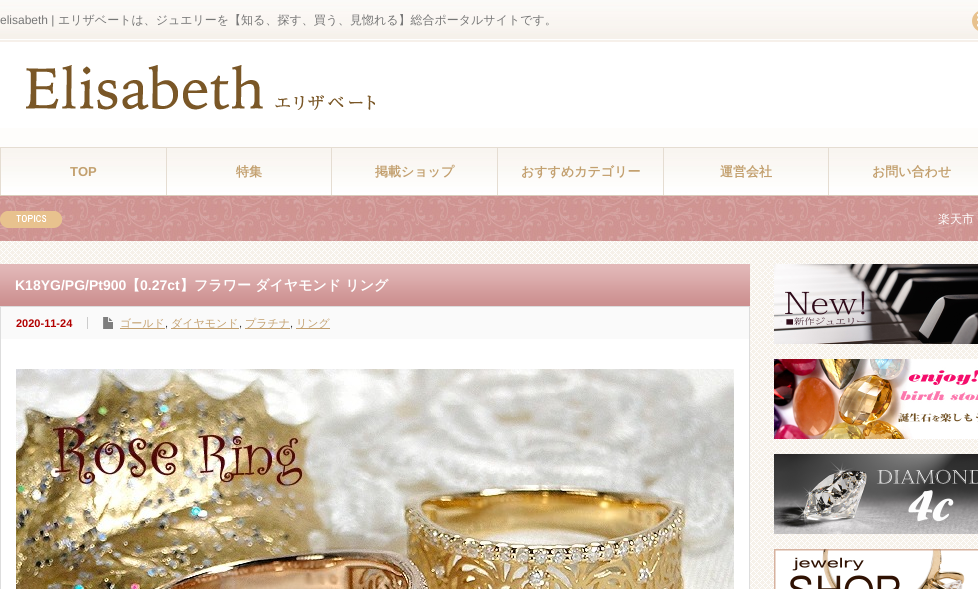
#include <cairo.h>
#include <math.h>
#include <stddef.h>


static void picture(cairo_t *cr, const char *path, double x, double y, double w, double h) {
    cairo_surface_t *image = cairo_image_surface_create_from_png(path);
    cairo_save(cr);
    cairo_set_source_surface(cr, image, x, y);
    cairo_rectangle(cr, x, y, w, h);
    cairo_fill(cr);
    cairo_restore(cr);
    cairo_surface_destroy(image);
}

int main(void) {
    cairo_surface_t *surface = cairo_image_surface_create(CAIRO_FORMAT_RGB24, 978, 589);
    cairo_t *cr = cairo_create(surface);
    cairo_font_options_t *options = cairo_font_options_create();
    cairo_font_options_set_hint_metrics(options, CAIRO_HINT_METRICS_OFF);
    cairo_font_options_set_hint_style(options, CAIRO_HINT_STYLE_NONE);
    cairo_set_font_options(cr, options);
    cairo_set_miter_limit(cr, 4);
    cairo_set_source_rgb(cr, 1, 1, 1);
    cairo_paint(cr);
    picture(cr, "img1.png", 0, 241, 978, 348);
    picture(cr, "img2.png", 0, 0, 978, 241);
    cairo_select_font_face(cr, "Liberation Sans", CAIRO_FONT_SLANT_NORMAL, CAIRO_FONT_WEIGHT_NORMAL);
    cairo_set_font_size(cr, 12);
    cairo_set_source_rgb(cr, 0.467, 0.467, 0.467);
    cairo_move_to(cr, 0, 24);
    cairo_show_text(cr, "elisabeth |");
    cairo_select_font_face(cr, "WenQuanYi Zen Hei Medium", CAIRO_FONT_SLANT_NORMAL, CAIRO_FONT_WEIGHT_NORMAL);
    cairo_move_to(cr, 58, 24);
    cairo_show_text(cr, "エリザベートは、ジュエリーを【知る、探す、買う、見惚れる】総合ポータルサイトです。");
    picture(cr, "img3.png", 972, 11, 6, 20);
    picture(cr, "img4.png", 26, 65, 349, 45);
    cairo_set_source_rgb(cr, 0.898, 0.867, 0.824);
    cairo_rectangle(cr, 0, 148, 1, 47);
    cairo_fill(cr);
    cairo_select_font_face(cr, "Liberation Sans", CAIRO_FONT_SLANT_NORMAL, CAIRO_FONT_WEIGHT_BOLD);
    cairo_set_font_size(cr, 13);
    cairo_set_source_rgb(cr, 0.765, 0.627, 0.435);
    cairo_move_to(cr, 70, 176);
    cairo_show_text(cr, "TOP");
    cairo_set_source_rgb(cr, 0.898, 0.867, 0.824);
    cairo_rectangle(cr, 166, 148, 1, 47);
    cairo_fill(cr);
    cairo_select_font_face(cr, "WenQuanYi Zen Hei", CAIRO_FONT_SLANT_NORMAL, CAIRO_FONT_WEIGHT_BOLD);
    cairo_set_source_rgb(cr, 0.765, 0.627, 0.435);
    cairo_move_to(cr, 236, 176);
    cairo_show_text(cr, "特集");
    cairo_set_source_rgb(cr, 0.898, 0.867, 0.824);
    cairo_rectangle(cr, 331, 148, 1, 47);
    cairo_fill(cr);
    cairo_set_source_rgb(cr, 0.765, 0.627, 0.435);
    cairo_move_to(cr, 375, 176);
    cairo_show_text(cr, "掲載ショップ");
    cairo_set_source_rgb(cr, 0.898, 0.867, 0.824);
    cairo_rectangle(cr, 497, 148, 1, 47);
    cairo_fill(cr);
    cairo_set_source_rgb(cr, 0.765, 0.627, 0.435);
    cairo_move_to(cr, 521, 176);
    cairo_show_text(cr, "おすすめカテゴリー");
    cairo_set_source_rgb(cr, 0.898, 0.867, 0.824);
    cairo_rectangle(cr, 663, 148, 1, 47);
    cairo_fill(cr);
    cairo_set_source_rgb(cr, 0.765, 0.627, 0.435);
    cairo_move_to(cr, 720, 176);
    cairo_show_text(cr, "運営会社");
    cairo_set_source_rgb(cr, 0.898, 0.867, 0.824);
    cairo_rectangle(cr, 828, 148, 1, 47);
    cairo_fill(cr);
    cairo_set_source_rgb(cr, 0.765, 0.627, 0.435);
    cairo_move_to(cr, 872, 176);
    cairo_show_text(cr, "お問い合わせ");
    picture(cr, "img5.png", 0, 211, 62, 17);
    cairo_select_font_face(cr, "WenQuanYi Zen Hei Medium", CAIRO_FONT_SLANT_NORMAL, CAIRO_FONT_WEIGHT_NORMAL);
    cairo_set_font_size(cr, 12);
    cairo_set_source_rgb(cr, 1, 1, 1);
    cairo_move_to(cr, 938, 223);
    cairo_show_text(cr, "楽天市");
    picture(cr, "img6.png", 0, 264, 750, 42);
    cairo_select_font_face(cr, "Liberation Sans", CAIRO_FONT_SLANT_NORMAL, CAIRO_FONT_WEIGHT_BOLD);
    cairo_set_font_size(cr, 14);
    cairo_move_to(cr, 15, 290);
    cairo_show_text(cr, "K18YG/PG/Pt900");
    cairo_select_font_face(cr, "WenQuanYi Zen Hei", CAIRO_FONT_SLANT_NORMAL, CAIRO_FONT_WEIGHT_BOLD);
    cairo_move_to(cr, 126, 290);
    cairo_show_text(cr, "【");
    cairo_select_font_face(cr, "Liberation Sans", CAIRO_FONT_SLANT_NORMAL, CAIRO_FONT_WEIGHT_BOLD);
    cairo_move_to(cr, 140, 290);
    cairo_show_text(cr, "0.27ct");
    cairo_select_font_face(cr, "WenQuanYi Zen Hei", CAIRO_FONT_SLANT_NORMAL, CAIRO_FONT_WEIGHT_BOLD);
    cairo_move_to(cr, 180, 290);
    cairo_show_text(cr, "】フラワー ダイヤモンド リング");
    cairo_rectangle(cr, 1, 339, 748, 250);
    cairo_fill(cr);
    cairo_rectangle(cr, 0.5, 306.5, 749, 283);
    cairo_set_source_rgb(cr, 0.867, 0.867, 0.867);
    cairo_set_line_width(cr, 1);
    cairo_stroke(cr);
    cairo_set_source_rgb(cr, 0.98, 0.98, 0.98);
    cairo_rectangle(cr, 1, 307, 748, 32);
    cairo_fill(cr);
    cairo_set_source_rgb(cr, 0.8, 0.8, 0.8);
    cairo_rectangle(cr, 87, 317, 1, 12);
    cairo_fill(cr);
    cairo_select_font_face(cr, "Liberation Sans", CAIRO_FONT_SLANT_NORMAL, CAIRO_FONT_WEIGHT_BOLD);
    cairo_set_font_size(cr, 11);
    cairo_set_source_rgb(cr, 0.698, 0, 0);
    cairo_move_to(cr, 16, 327);
    cairo_show_text(cr, "2020-11-24");
    picture(cr, "img7.png", 103, 317, 10, 12);
    cairo_set_source_rgb(cr, 0.765, 0.627, 0.435);
    cairo_rectangle(cr, 120, 328, 45, 1);
    cairo_fill(cr);
    cairo_select_font_face(cr, "WenQuanYi Zen Hei Medium", CAIRO_FONT_SLANT_NORMAL, CAIRO_FONT_WEIGHT_NORMAL);
    cairo_move_to(cr, 120, 327);
    cairo_show_text(cr, "ゴールド");
    cairo_select_font_face(cr, "Liberation Sans", CAIRO_FONT_SLANT_NORMAL, CAIRO_FONT_WEIGHT_NORMAL);
    cairo_set_source_rgb(cr, 0.2, 0.2, 0.2);
    cairo_move_to(cr, 165, 327);
    cairo_show_text(cr, ",");
    cairo_set_source_rgb(cr, 0.765, 0.627, 0.435);
    cairo_rectangle(cr, 171, 328, 68, 1);
    cairo_fill(cr);
    cairo_select_font_face(cr, "WenQuanYi Zen Hei Medium", CAIRO_FONT_SLANT_NORMAL, CAIRO_FONT_WEIGHT_NORMAL);
    cairo_move_to(cr, 171, 327);
    cairo_show_text(cr, "ダイヤモンド");
    cairo_select_font_face(cr, "Liberation Sans", CAIRO_FONT_SLANT_NORMAL, CAIRO_FONT_WEIGHT_NORMAL);
    cairo_set_source_rgb(cr, 0.2, 0.2, 0.2);
    cairo_move_to(cr, 239, 327);
    cairo_show_text(cr, ",");
    cairo_set_source_rgb(cr, 0.765, 0.627, 0.435);
    cairo_rectangle(cr, 245, 328, 45, 1);
    cairo_fill(cr);
    cairo_select_font_face(cr, "WenQuanYi Zen Hei Medium", CAIRO_FONT_SLANT_NORMAL, CAIRO_FONT_WEIGHT_NORMAL);
    cairo_move_to(cr, 245, 327);
    cairo_show_text(cr, "プラチナ");
    cairo_select_font_face(cr, "Liberation Sans", CAIRO_FONT_SLANT_NORMAL, CAIRO_FONT_WEIGHT_NORMAL);
    cairo_set_source_rgb(cr, 0.2, 0.2, 0.2);
    cairo_move_to(cr, 290, 327);
    cairo_show_text(cr, ",");
    cairo_set_source_rgb(cr, 0.765, 0.627, 0.435);
    cairo_rectangle(cr, 296, 328, 34, 1);
    cairo_fill(cr);
    cairo_select_font_face(cr, "WenQuanYi Zen Hei Medium", CAIRO_FONT_SLANT_NORMAL, CAIRO_FONT_WEIGHT_NORMAL);
    cairo_move_to(cr, 296, 327);
    cairo_show_text(cr, "リング");
    picture(cr, "img8.png", 16, 369, 718, 220);
    picture(cr, "img9.png", 774, 264, 204, 80);
    picture(cr, "img10.png", 774, 359, 204, 80);
    picture(cr, "img11.png", 774, 454, 204, 80);
    picture(cr, "img12.png", 774, 549, 204, 40);
    cairo_surface_write_to_png(surface, "page.png");
    cairo_font_options_destroy(options);
    cairo_destroy(cr);
    cairo_surface_destroy(surface);
    return 0;
}
